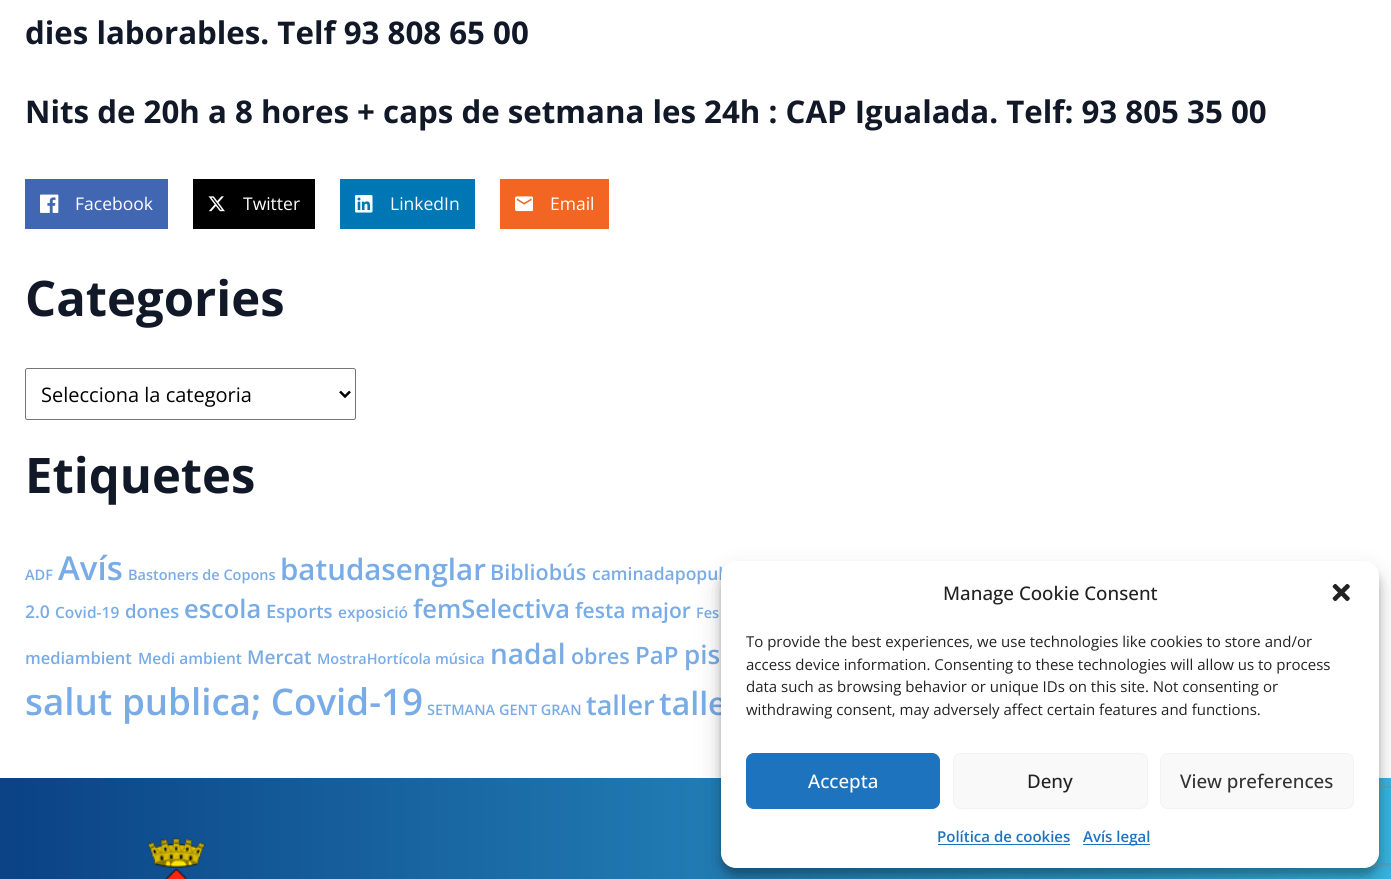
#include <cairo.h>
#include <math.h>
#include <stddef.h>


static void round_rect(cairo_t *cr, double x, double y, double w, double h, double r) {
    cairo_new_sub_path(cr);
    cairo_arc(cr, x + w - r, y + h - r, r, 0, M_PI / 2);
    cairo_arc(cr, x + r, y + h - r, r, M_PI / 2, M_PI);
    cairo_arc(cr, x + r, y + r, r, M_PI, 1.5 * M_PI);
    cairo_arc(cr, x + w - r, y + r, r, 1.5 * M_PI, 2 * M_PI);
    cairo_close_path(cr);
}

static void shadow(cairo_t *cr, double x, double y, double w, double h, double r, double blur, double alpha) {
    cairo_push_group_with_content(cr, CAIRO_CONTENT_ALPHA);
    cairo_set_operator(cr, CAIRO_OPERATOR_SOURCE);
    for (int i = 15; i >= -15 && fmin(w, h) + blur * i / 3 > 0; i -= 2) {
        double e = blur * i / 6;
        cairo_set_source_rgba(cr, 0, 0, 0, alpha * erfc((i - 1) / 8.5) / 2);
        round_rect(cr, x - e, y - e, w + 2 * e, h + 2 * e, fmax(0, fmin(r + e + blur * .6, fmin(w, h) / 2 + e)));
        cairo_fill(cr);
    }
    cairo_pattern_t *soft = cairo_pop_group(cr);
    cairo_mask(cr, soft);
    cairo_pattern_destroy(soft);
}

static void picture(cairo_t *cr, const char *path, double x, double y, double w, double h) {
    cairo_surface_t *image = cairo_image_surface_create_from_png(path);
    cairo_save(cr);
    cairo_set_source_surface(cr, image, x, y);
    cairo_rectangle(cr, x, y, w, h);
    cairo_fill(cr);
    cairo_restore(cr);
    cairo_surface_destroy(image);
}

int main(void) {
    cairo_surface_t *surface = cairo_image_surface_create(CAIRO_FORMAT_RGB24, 1391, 879);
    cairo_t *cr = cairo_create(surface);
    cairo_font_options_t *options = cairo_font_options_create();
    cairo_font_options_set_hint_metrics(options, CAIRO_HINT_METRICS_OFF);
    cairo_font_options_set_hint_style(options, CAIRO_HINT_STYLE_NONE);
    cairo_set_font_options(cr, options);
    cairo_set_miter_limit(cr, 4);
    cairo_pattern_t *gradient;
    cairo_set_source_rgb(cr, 1, 1, 1);
    cairo_paint(cr);
    cairo_select_font_face(cr, "Open Sans", CAIRO_FONT_SLANT_NORMAL, CAIRO_FONT_WEIGHT_BOLD);
    cairo_set_font_size(cr, 31.25);
    cairo_set_source_rgb(cr, 0.067, 0.094, 0.153);
    cairo_move_to(cr, 25, 44);
    cairo_show_text(cr, "dies laborables. Telf 93 808 65 00");
    cairo_move_to(cr, 25, 123);
    cairo_show_text(cr, "Nits de 20h a 8 hores + caps de setmana les 24h : CAP Igualada. Telf: 93 805 35 00");
    cairo_set_source_rgb(cr, 0.259, 0.404, 0.698);
    cairo_rectangle(cr, 25, 179, 143, 50);
    cairo_fill(cr);
    picture(cr, "img1.png", 40, 194, 19, 19);
    cairo_select_font_face(cr, "Open Sans", CAIRO_FONT_SLANT_NORMAL, CAIRO_FONT_WEIGHT_NORMAL);
    cairo_set_font_size(cr, 17.5);
    cairo_set_source_rgb(cr, 1, 1, 1);
    cairo_move_to(cr, 75, 210);
    cairo_show_text(cr, "Facebook");
    cairo_set_source_rgb(cr, 0, 0, 0);
    cairo_rectangle(cr, 193, 179, 122, 50);
    cairo_fill(cr);
    picture(cr, "img2.png", 208, 196, 17, 16);
    cairo_set_source_rgb(cr, 1, 1, 1);
    cairo_move_to(cr, 243, 210);
    cairo_show_text(cr, "Twitter");
    cairo_set_source_rgb(cr, 0, 0.467, 0.71);
    cairo_rectangle(cr, 340, 179, 135, 50);
    cairo_fill(cr);
    picture(cr, "img3.png", 355, 195, 18, 18);
    cairo_set_source_rgb(cr, 1, 1, 1);
    cairo_move_to(cr, 390, 210);
    cairo_show_text(cr, "LinkedIn");
    cairo_set_source_rgb(cr, 0.949, 0.396, 0.133);
    cairo_rectangle(cr, 500, 179, 109, 50);
    cairo_fill(cr);
    picture(cr, "img4.png", 515, 196, 18, 16);
    cairo_set_source_rgb(cr, 1, 1, 1);
    cairo_move_to(cr, 550, 210);
    cairo_show_text(cr, "Email");
    cairo_select_font_face(cr, "Open Sans", CAIRO_FONT_SLANT_NORMAL, CAIRO_FONT_WEIGHT_BOLD);
    cairo_set_font_size(cr, 49);
    cairo_set_source_rgb(cr, 0.067, 0.094, 0.153);
    cairo_move_to(cr, 25, 316);
    cairo_show_text(cr, "Categories");
    round_rect(cr, 25.5, 368.5, 330, 51, 2);
    cairo_set_source_rgb(cr, 0.463, 0.463, 0.463);
    cairo_set_line_width(cr, 1);
    cairo_stroke(cr);
    cairo_new_path(cr);
    cairo_move_to(cr, 340, 391.5);
    cairo_line_to(cr, 345, 396.5);
    cairo_line_to(cr, 350, 391.5);
    cairo_set_source_rgb(cr, 0, 0, 0);
    cairo_set_line_width(cr, 2.5);
    cairo_stroke(cr);
    cairo_select_font_face(cr, "Open Sans", CAIRO_FONT_SLANT_NORMAL, CAIRO_FONT_WEIGHT_NORMAL);
    cairo_set_font_size(cr, 20);
    cairo_move_to(cr, 41, 402);
    cairo_show_text(cr, "Selecciona la categoria");
    cairo_select_font_face(cr, "Open Sans", CAIRO_FONT_SLANT_NORMAL, CAIRO_FONT_WEIGHT_BOLD);
    cairo_set_font_size(cr, 49);
    cairo_set_source_rgb(cr, 0.067, 0.094, 0.153);
    cairo_move_to(cr, 25, 493);
    cairo_show_text(cr, "Etiquetes");
    cairo_select_font_face(cr, "Open Sans SemiBold", CAIRO_FONT_SLANT_NORMAL, CAIRO_FONT_WEIGHT_NORMAL);
    cairo_set_font_size(cr, 14.5);
    cairo_set_source_rgb(cr, 0.475, 0.675, 0.902);
    cairo_move_to(cr, 25, 580);
    cairo_show_text(cr, "ADF");
    cairo_set_font_size(cr, 33);
    cairo_move_to(cr, 58, 580);
    cairo_show_text(cr, "Avís");
    cairo_set_font_size(cr, 14.5);
    cairo_move_to(cr, 128, 580);
    cairo_show_text(cr, "Bastoners de Copons");
    cairo_set_font_size(cr, 29.5);
    cairo_move_to(cr, 280, 580);
    cairo_show_text(cr, "batudasenglar");
    cairo_set_font_size(cr, 21.5);
    cairo_move_to(cr, 490, 580);
    cairo_show_text(cr, "Bibliobús");
    cairo_set_font_size(cr, 17.5);
    cairo_move_to(cr, 592, 580);
    cairo_show_text(cr, "caminadapopul");
    cairo_move_to(cr, 25, 618);
    cairo_show_text(cr, "2.0");
    cairo_set_font_size(cr, 15.5);
    cairo_move_to(cr, 55, 618);
    cairo_show_text(cr, "Covid-19");
    cairo_set_font_size(cr, 18.5);
    cairo_move_to(cr, 125, 618);
    cairo_show_text(cr, "dones");
    cairo_set_font_size(cr, 25.5);
    cairo_move_to(cr, 184, 618);
    cairo_show_text(cr, "escola");
    cairo_set_font_size(cr, 18.5);
    cairo_move_to(cr, 266, 618);
    cairo_show_text(cr, "Esports");
    cairo_set_font_size(cr, 15.5);
    cairo_move_to(cr, 338, 618);
    cairo_show_text(cr, "exposició");
    cairo_set_font_size(cr, 25.5);
    cairo_move_to(cr, 413, 618);
    cairo_show_text(cr, "femSelectiva");
    cairo_set_font_size(cr, 21);
    cairo_move_to(cr, 575, 618);
    cairo_show_text(cr, "festa major");
    cairo_set_font_size(cr, 14.5);
    cairo_move_to(cr, 696, 618);
    cairo_show_text(cr, "Fes");
    cairo_set_font_size(cr, 16.5);
    cairo_move_to(cr, 25, 664);
    cairo_show_text(cr, "mediambient");
    cairo_set_font_size(cr, 15.5);
    cairo_move_to(cr, 138, 664);
    cairo_show_text(cr, "Medi ambient");
    cairo_set_font_size(cr, 19);
    cairo_move_to(cr, 247, 664);
    cairo_show_text(cr, "Mercat");
    cairo_set_font_size(cr, 14.5);
    cairo_move_to(cr, 317, 664);
    cairo_show_text(cr, "MostraHortícola");
    cairo_move_to(cr, 435, 664);
    cairo_show_text(cr, "música");
    cairo_set_font_size(cr, 28);
    cairo_move_to(cr, 490, 664);
    cairo_show_text(cr, "nadal");
    cairo_set_font_size(cr, 21.5);
    cairo_move_to(cr, 571, 664);
    cairo_show_text(cr, "obres");
    cairo_set_font_size(cr, 24);
    cairo_move_to(cr, 635, 664);
    cairo_show_text(cr, "PaP");
    cairo_set_font_size(cr, 26);
    cairo_move_to(cr, 684, 664);
    cairo_show_text(cr, "pis");
    cairo_set_font_size(cr, 36.75);
    cairo_move_to(cr, 25, 715);
    cairo_show_text(cr, "salut publica; Covid-19");
    cairo_set_font_size(cr, 14.5);
    cairo_move_to(cr, 427, 715);
    cairo_show_text(cr, "SETMANA GENT GRAN");
    cairo_set_font_size(cr, 27);
    cairo_move_to(cr, 586, 715);
    cairo_show_text(cr, "taller");
    cairo_set_font_size(cr, 32);
    cairo_move_to(cr, 659, 715);
    cairo_show_text(cr, "talle");
    gradient = cairo_pattern_create_linear(0, 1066, 1391, 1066);
    cairo_pattern_add_color_stop_rgba(gradient, 0.01, 0.043, 0.263, 0.525, 1);
    cairo_pattern_add_color_stop_rgba(gradient, 1, 0.216, 0.706, 0.882, 1);
    cairo_set_source(cr, gradient);
    cairo_pattern_destroy(gradient);
    cairo_rectangle(cr, 0, 778, 1391, 101);
    cairo_fill(cr);
    cairo_set_source_rgb(cr, 0, 0, 0);
    shadow(cr, 721, 569, 658, 306, 15, 4, 0.23);
    shadow(cr, 721, 574, 658, 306, 15, 12.5, 0.19);
    cairo_save(cr);
    cairo_set_fill_rule(cr, CAIRO_FILL_RULE_EVEN_ODD);
    cairo_new_path(cr);
    cairo_move_to(cr, 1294, 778);
    cairo_line_to(cr, 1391, 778);
    cairo_line_to(cr, 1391, 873);
    cairo_line_to(cr, 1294, 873);
    cairo_close_path(cr);
    cairo_move_to(cr, 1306.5, 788);
    cairo_line_to(cr, 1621.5, 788);
    cairo_curve_to(cr, 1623, 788, 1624, 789, 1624, 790.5);
    cairo_line_to(cr, 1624, 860.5);
    cairo_curve_to(cr, 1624, 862, 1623, 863, 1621.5, 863);
    cairo_line_to(cr, 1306.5, 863);
    cairo_curve_to(cr, 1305, 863, 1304, 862, 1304, 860.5);
    cairo_line_to(cr, 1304, 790.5);
    cairo_curve_to(cr, 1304, 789, 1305, 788, 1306.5, 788);
    cairo_close_path(cr);
    cairo_clip(cr);
    cairo_set_source_rgb(cr, 0.502, 0.502, 0.502);
    shadow(cr, 1304, 788, 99, 75, 2.5, 3, 1);
    cairo_restore(cr);
    cairo_set_source_rgb(cr, 1, 1, 1);
    round_rect(cr, 721, 561, 658, 307, 15);
    cairo_fill(cr);
    cairo_select_font_face(cr, "Open Sans Medium", CAIRO_FONT_SLANT_NORMAL, CAIRO_FONT_WEIGHT_NORMAL);
    cairo_set_font_size(cr, 18.75);
    cairo_set_source_rgb(cr, 0.133, 0.133, 0.133);
    cairo_move_to(cr, 943, 600);
    cairo_show_text(cr, "Manage Cookie Consent");
    picture(cr, "img5.png", 1332, 583, 18, 19);
    cairo_select_font_face(cr, "Open Sans", CAIRO_FONT_SLANT_NORMAL, CAIRO_FONT_WEIGHT_NORMAL);
    cairo_set_font_size(cr, 15);
    cairo_move_to(cr, 746, 647);
    cairo_show_text(cr, "To provide the best experiences, we use technologies like cookies to store and/or");
    cairo_move_to(cr, 746, 670);
    cairo_show_text(cr, "access device information. Consenting to these technologies will allow us to process");
    cairo_move_to(cr, 746, 692);
    cairo_show_text(cr, "data such as browsing behavior or unique IDs on this site. Not consenting or");
    cairo_move_to(cr, 746, 715);
    cairo_show_text(cr, "withdrawing consent, may adversely affect certain features and functions.");
    cairo_set_source_rgb(cr, 0.118, 0.451, 0.745);
    round_rect(cr, 746.5, 753.5, 193, 55, 7.5);
    cairo_fill_preserve(cr);
    cairo_set_line_width(cr, 1);
    cairo_stroke(cr);
    cairo_select_font_face(cr, "Open Sans Medium", CAIRO_FONT_SLANT_NORMAL, CAIRO_FONT_WEIGHT_NORMAL);
    cairo_set_font_size(cr, 18.75);
    cairo_set_source_rgb(cr, 1, 1, 1);
    cairo_move_to(cr, 808, 788);
    cairo_show_text(cr, "Accepta");
    cairo_set_source_rgb(cr, 0.976, 0.976, 0.976);
    round_rect(cr, 953.5, 753.5, 194, 55, 7.5);
    cairo_fill_preserve(cr);
    cairo_set_source_rgb(cr, 0.949, 0.949, 0.949);
    cairo_stroke(cr);
    cairo_set_source_rgb(cr, 0.133, 0.133, 0.133);
    cairo_move_to(cr, 1027, 788);
    cairo_show_text(cr, "Deny");
    cairo_set_source_rgb(cr, 0.976, 0.976, 0.976);
    round_rect(cr, 1160.5, 753.5, 193, 55, 7.5);
    cairo_fill_preserve(cr);
    cairo_set_source_rgb(cr, 0.949, 0.949, 0.949);
    cairo_stroke(cr);
    cairo_set_source_rgb(cr, 0.2, 0.2, 0.2);
    cairo_move_to(cr, 1180, 788);
    cairo_show_text(cr, "View preferences");
    cairo_select_font_face(cr, "Open Sans SemiBold", CAIRO_FONT_SLANT_NORMAL, CAIRO_FONT_WEIGHT_NORMAL);
    cairo_set_font_size(cr, 15);
    cairo_set_source_rgb(cr, 0.118, 0.451, 0.745);
    cairo_move_to(cr, 937, 842);
    cairo_show_text(cr, "Política de cookies");
    cairo_rectangle(cr, 938, 844, 132, 1);
    cairo_fill(cr);
    cairo_rectangle(cr, 1083, 844, 67, 1);
    cairo_fill(cr);
    cairo_move_to(cr, 1083, 842);
    cairo_show_text(cr, "Avís legal");
    picture(cr, "img6.png", 147, 837, 59, 42);
    cairo_surface_write_to_png(surface, "page.png");
    cairo_font_options_destroy(options);
    cairo_destroy(cr);
    cairo_surface_destroy(surface);
    return 0;
}
